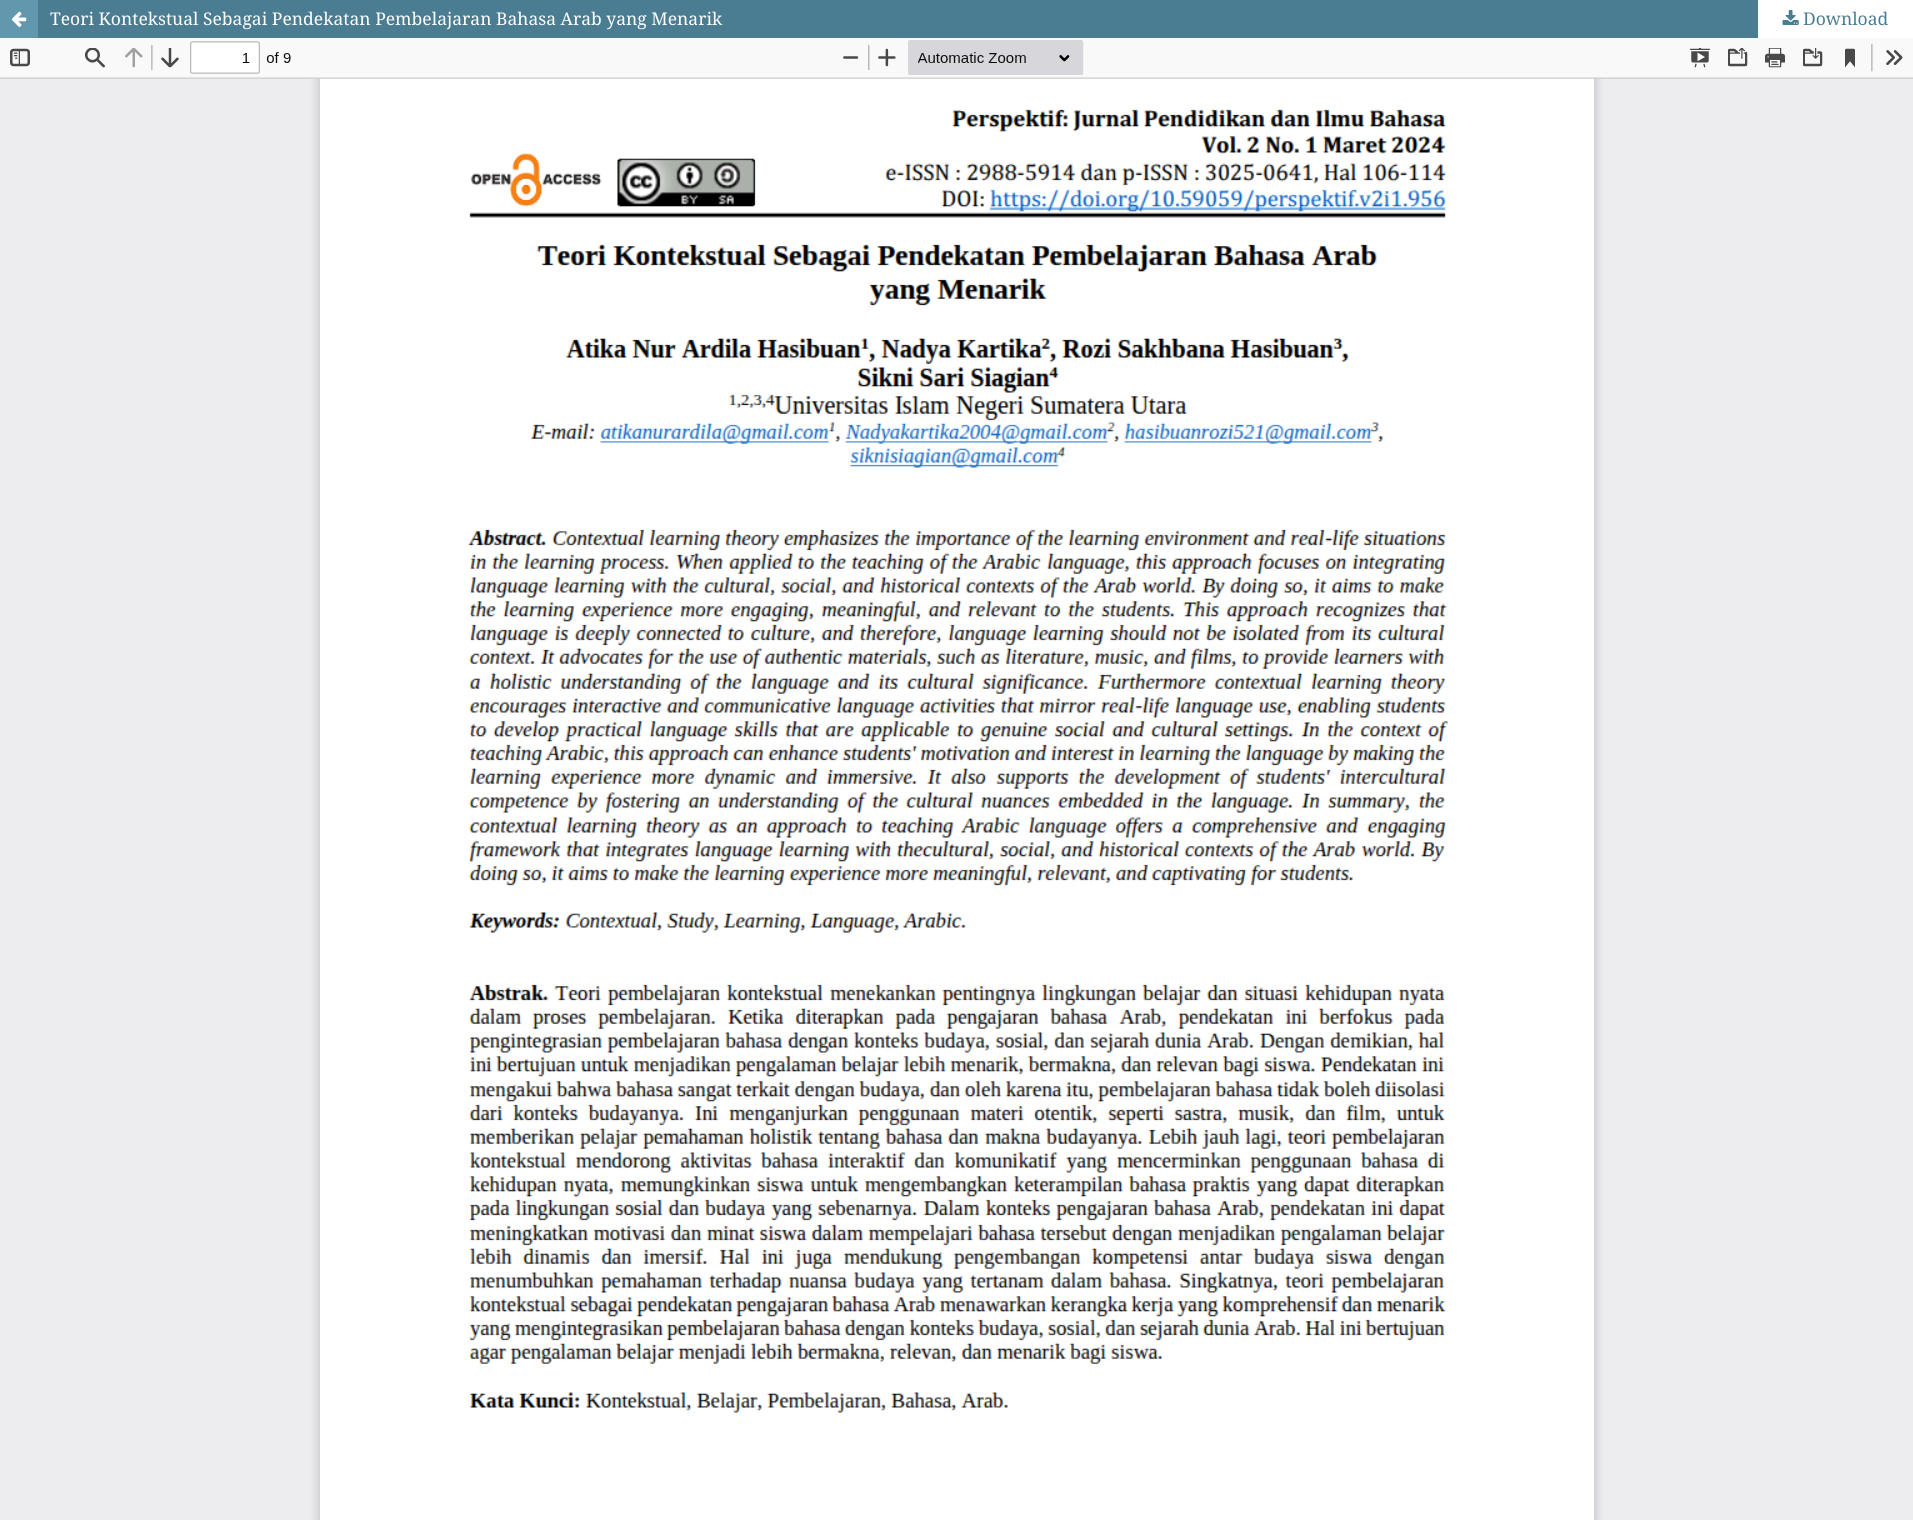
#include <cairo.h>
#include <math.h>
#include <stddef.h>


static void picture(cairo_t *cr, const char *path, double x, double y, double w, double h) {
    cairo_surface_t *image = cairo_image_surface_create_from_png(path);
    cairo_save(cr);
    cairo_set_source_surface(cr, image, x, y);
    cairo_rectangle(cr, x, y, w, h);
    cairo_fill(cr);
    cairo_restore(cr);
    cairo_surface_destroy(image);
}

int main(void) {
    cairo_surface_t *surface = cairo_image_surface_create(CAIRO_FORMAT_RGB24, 1913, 1520);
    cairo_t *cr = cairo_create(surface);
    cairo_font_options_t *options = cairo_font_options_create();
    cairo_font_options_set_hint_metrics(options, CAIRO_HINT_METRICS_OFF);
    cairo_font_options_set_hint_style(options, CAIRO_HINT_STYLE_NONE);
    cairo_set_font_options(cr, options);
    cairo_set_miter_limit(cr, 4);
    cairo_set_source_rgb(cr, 1, 1, 1);
    cairo_paint(cr);
    cairo_set_source_rgb(cr, 0.294, 0.49, 0.573);
    cairo_rectangle(cr, 38, 0, 1720, 38);
    cairo_fill(cr);
    cairo_set_source_rgb(cr, 0.384, 0.596, 0.682);
    cairo_rectangle(cr, 0, 0, 38, 38);
    cairo_fill(cr);
    picture(cr, "img1.png", 11, 11, 16, 16);
    cairo_select_font_face(cr, "Noto Serif", CAIRO_FONT_SLANT_NORMAL, CAIRO_FONT_WEIGHT_NORMAL);
    cairo_set_font_size(cr, 17.5);
    cairo_set_source_rgb(cr, 1, 1, 1);
    cairo_move_to(cr, 50, 25);
    cairo_show_text(cr, "Teori Kontekstual Sebagai Pendekatan Pembelajaran Bahasa Arab yang Menarik");
    picture(cr, "img2.png", 1782, 10, 17, 15);
    cairo_set_source_rgb(cr, 0.294, 0.49, 0.573);
    cairo_move_to(cr, 1803, 25);
    cairo_show_text(cr, "Download");
    picture(cr, "img3.png", 0, 38, 1913, 1482);
    cairo_surface_write_to_png(surface, "page.png");
    cairo_font_options_destroy(options);
    cairo_destroy(cr);
    cairo_surface_destroy(surface);
    return 0;
}
